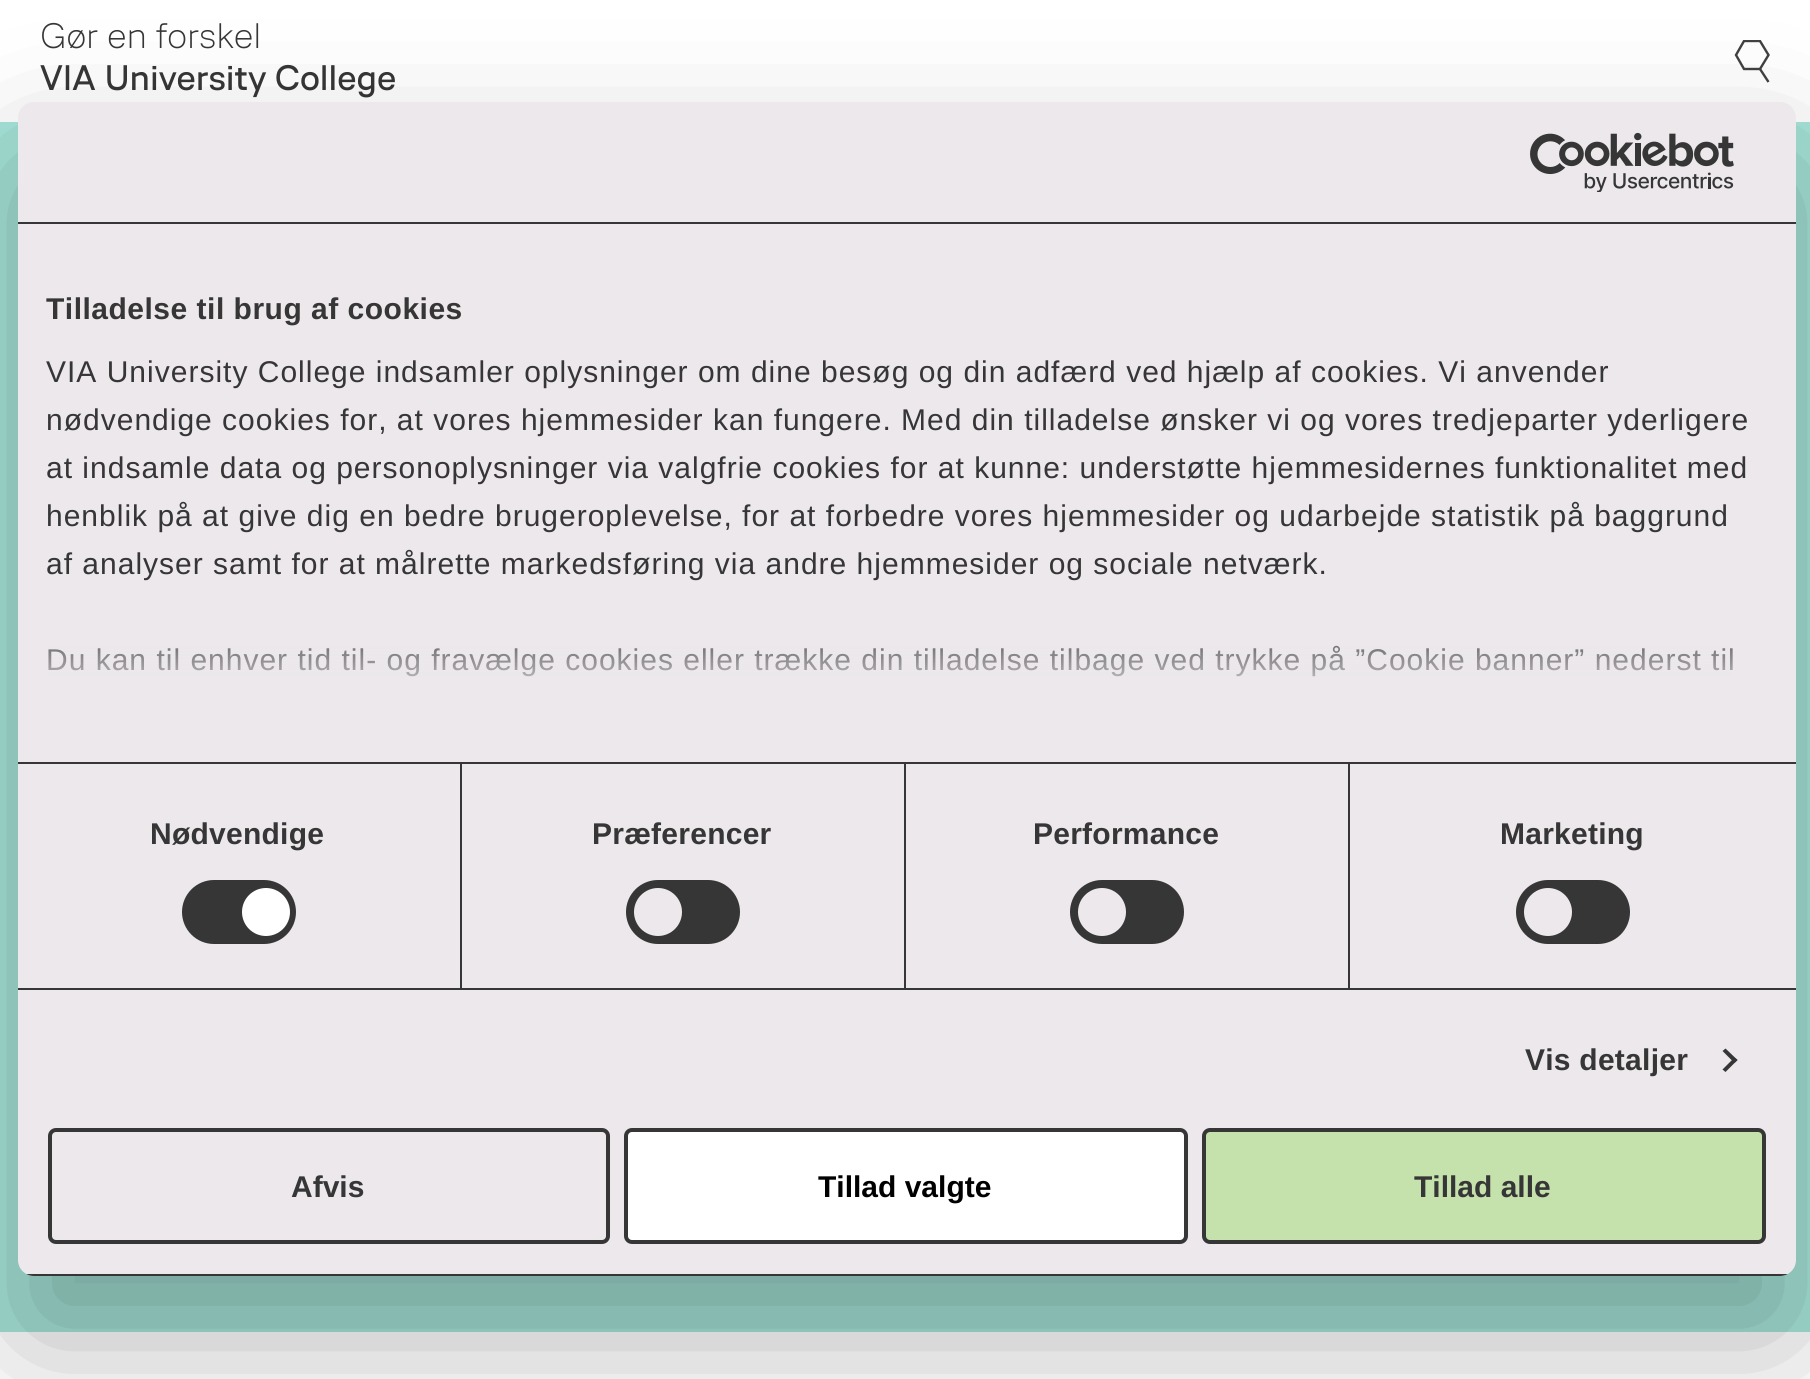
#include <cairo.h>
#include <math.h>
#include <stddef.h>


static void spaced_text(cairo_t *cr, double x, double y, const char *s, double letter, double word) {
    cairo_move_to(cr, x, y);
    while (*s) {
        char ch[5] = {0};
        int n = 0;
        do ch[n++] = *s++; while ((*s & 0xC0) == 0x80);
        cairo_show_text(cr, ch);
        cairo_rel_move_to(cr, letter + word * (*ch == ' '), 0);
    }
}

static void round_rect(cairo_t *cr, double x, double y, double w, double h, double r) {
    cairo_new_sub_path(cr);
    cairo_arc(cr, x + w - r, y + h - r, r, 0, M_PI / 2);
    cairo_arc(cr, x + r, y + h - r, r, M_PI / 2, M_PI);
    cairo_arc(cr, x + r, y + r, r, M_PI, 1.5 * M_PI);
    cairo_arc(cr, x + w - r, y + r, r, 1.5 * M_PI, 2 * M_PI);
    cairo_close_path(cr);
}

static void shadow(cairo_t *cr, double x, double y, double w, double h, double r, double blur, double alpha) {
    cairo_push_group_with_content(cr, CAIRO_CONTENT_ALPHA);
    cairo_set_operator(cr, CAIRO_OPERATOR_SOURCE);
    for (int i = 15; i >= -15 && fmin(w, h) + blur * i / 3 > 0; i -= 2) {
        double e = blur * i / 6;
        cairo_set_source_rgba(cr, 0, 0, 0, alpha * erfc((i - 1) / 8.5) / 2);
        round_rect(cr, x - e, y - e, w + 2 * e, h + 2 * e, fmax(0, fmin(r + e + blur * .6, fmin(w, h) / 2 + e)));
        cairo_fill(cr);
    }
    cairo_pattern_t *soft = cairo_pop_group(cr);
    cairo_mask(cr, soft);
    cairo_pattern_destroy(soft);
}

static void picture(cairo_t *cr, const char *path, double x, double y, double w, double h) {
    cairo_surface_t *image = cairo_image_surface_create_from_png(path);
    cairo_save(cr);
    cairo_set_source_surface(cr, image, x, y);
    cairo_rectangle(cr, x, y, w, h);
    cairo_fill(cr);
    cairo_restore(cr);
    cairo_surface_destroy(image);
}

int main(void) {
    cairo_surface_t *surface = cairo_image_surface_create(CAIRO_FORMAT_RGB24, 1810, 1379);
    cairo_t *cr = cairo_create(surface);
    cairo_font_options_t *options = cairo_font_options_create();
    cairo_font_options_set_hint_metrics(options, CAIRO_HINT_METRICS_OFF);
    cairo_font_options_set_hint_style(options, CAIRO_HINT_STYLE_NONE);
    cairo_set_font_options(cr, options);
    cairo_set_miter_limit(cr, 4);
    cairo_pattern_t *gradient;
    cairo_set_source_rgb(cr, 1, 1, 1);
    cairo_paint(cr);
    cairo_select_font_face(cr, "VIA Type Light", CAIRO_FONT_SLANT_NORMAL, CAIRO_FONT_WEIGHT_NORMAL);
    cairo_set_font_size(cr, 35.4);
    cairo_set_source_rgb(cr, 0.212, 0.212, 0.212);
    cairo_move_to(cr, 40, 48);
    cairo_show_text(cr, "Gør en forskel");
    cairo_select_font_face(cr, "VIA Type", CAIRO_FONT_SLANT_NORMAL, CAIRO_FONT_WEIGHT_NORMAL);
    cairo_move_to(cr, 40, 90);
    cairo_show_text(cr, "VIA University College");
    cairo_save(cr);
    cairo_rectangle(cr, 1734, 40, 36, 42);
    cairo_clip(cr);
    cairo_new_path(cr);
    cairo_move_to(cr, 1744, 69);
    cairo_line_to(cr, 1736, 55);
    cairo_line_to(cr, 1744, 41);
    cairo_line_to(cr, 1760, 41);
    cairo_line_to(cr, 1768.5, 55);
    cairo_line_to(cr, 1760, 69);
    cairo_close_path(cr);
    cairo_set_source_rgb(cr, 0.255, 0.255, 0.255);
    cairo_set_line_width(cr, 2.4);
    cairo_stroke(cr);
    cairo_restore(cr);
    cairo_new_path(cr);
    cairo_move_to(cr, 1768.5, 82);
    cairo_line_to(cr, 1760, 69);
    cairo_set_source_rgb(cr, 0.255, 0.255, 0.255);
    cairo_set_line_width(cr, 2.4);
    cairo_stroke(cr);
    cairo_set_source_rgb(cr, 0.651, 0.898, 0.851);
    cairo_rectangle(cr, 0, 122, 1810, 1210);
    cairo_fill(cr);
    cairo_set_source_rgb(cr, 0, 0, 0);
    shadow(cr, 18, 166, 1778, 1174, 16, 68, 0.3);
    cairo_set_source_rgb(cr, 0.922, 0.91, 0.922);
    round_rect(cr, 18, 102, 1778, 1174, 16);
    cairo_fill(cr);
    cairo_set_source_rgb(cr, 0.212, 0.212, 0.212);
    cairo_rectangle(cr, 18, 222, 1778, 2);
    cairo_fill(cr);
    picture(cr, "img1.png", 1530, 132, 204, 60);
    cairo_rectangle(cr, 18, 762, 1778, 2);
    cairo_fill(cr);
    cairo_select_font_face(cr, "Liberation Sans", CAIRO_FONT_SLANT_NORMAL, CAIRO_FONT_WEIGHT_BOLD);
    cairo_set_font_size(cr, 30);
    spaced_text(cr, 46, 319, "Tilladelse til brug af cookies", 0.5, 0);
    cairo_select_font_face(cr, "Liberation Sans", CAIRO_FONT_SLANT_NORMAL, CAIRO_FONT_WEIGHT_NORMAL);
    spaced_text(cr, 46, 382, "VIA University College indsamler oplysninger om dine besøg og din adfærd ved hjælp af cookies. Vi anvender", 1, 0);
    spaced_text(cr, 46, 430, "nødvendige cookies for, at vores hjemmesider kan fungere. Med din tilladelse ønsker vi og vores tredjeparter yderligere", 1, 0);
    spaced_text(cr, 46, 478, "at indsamle data og personoplysninger via valgfrie cookies for at kunne: understøtte hjemmesidernes funktionalitet med", 1, 0);
    spaced_text(cr, 46, 526, "henblik på at give dig en bedre brugeroplevelse, for at forbedre vores hjemmesider og udarbejde statistik på baggrund", 1, 0);
    spaced_text(cr, 46, 574, "af analyser samt for at målrette markedsføring via andre hjemmesider og sociale netværk.", 1, 0);
    spaced_text(cr, 46, 670, "Du kan til enhver tid til- og fravælge cookies eller trække din tilladelse tilbage ved trykke på ”Cookie banner” nederst til", 1, 0);
    gradient = cairo_pattern_create_linear(893, 763, 893, 613);
    cairo_pattern_add_color_stop_rgba(gradient, 0, 0.922, 0.91, 0.922, 1);
    cairo_pattern_add_color_stop_rgba(gradient, 0.5, 0.922, 0.91, 0.922, 0.8);
    cairo_pattern_add_color_stop_rgba(gradient, 1, 0.922, 0.91, 0.922, 0);
    cairo_set_source(cr, gradient);
    cairo_pattern_destroy(gradient);
    cairo_rectangle(cr, 48, 645, 1685, 32);
    cairo_fill(cr);
    cairo_set_source_rgb(cr, 0.212, 0.212, 0.212);
    cairo_rectangle(cr, 18, 988, 1778, 2);
    cairo_fill(cr);
    cairo_rectangle(cr, 460, 764, 2, 224);
    cairo_fill(cr);
    cairo_select_font_face(cr, "Liberation Sans", CAIRO_FONT_SLANT_NORMAL, CAIRO_FONT_WEIGHT_BOLD);
    spaced_text(cr, 150, 844, "Nødvendige", 0.25, 0);
    round_rect(cr, 182, 880, 114, 64, 32);
    cairo_fill(cr);
    cairo_set_source_rgb(cr, 1, 1, 1);
    cairo_arc(cr, 266, 912, 24, 0, 2 * M_PI);
    cairo_fill(cr);
    cairo_set_source_rgb(cr, 0.212, 0.212, 0.212);
    cairo_rectangle(cr, 904, 764, 2, 224);
    cairo_fill(cr);
    spaced_text(cr, 592, 844, "Præferencer", 0.25, 0);
    round_rect(cr, 626, 880, 114, 64, 32);
    cairo_fill(cr);
    cairo_set_source_rgb(cr, 0.922, 0.91, 0.922);
    cairo_arc(cr, 658, 912, 24, 0, 2 * M_PI);
    cairo_fill(cr);
    cairo_set_source_rgb(cr, 0.212, 0.212, 0.212);
    cairo_rectangle(cr, 1348, 764, 2, 224);
    cairo_fill(cr);
    spaced_text(cr, 1033, 844, "Performance", 0.25, 0);
    round_rect(cr, 1070, 880, 114, 64, 32);
    cairo_fill(cr);
    cairo_set_source_rgb(cr, 0.922, 0.91, 0.922);
    cairo_arc(cr, 1102, 912, 24, 0, 2 * M_PI);
    cairo_fill(cr);
    cairo_set_source_rgb(cr, 0.212, 0.212, 0.212);
    spaced_text(cr, 1500, 844, "Marketing", 0.25, 0);
    round_rect(cr, 1516, 880, 114, 64, 32);
    cairo_fill(cr);
    cairo_set_source_rgb(cr, 0.922, 0.91, 0.922);
    cairo_arc(cr, 1548, 912, 24, 0, 2 * M_PI);
    cairo_fill(cr);
    cairo_set_source_rgb(cr, 0.212, 0.212, 0.212);
    spaced_text(cr, 1525, 1070, "Vis detaljer", 0.25, 0);
    cairo_new_path(cr);
    cairo_move_to(cr, 1725.5, 1048.5);
    cairo_line_to(cr, 1737.5, 1060);
    cairo_line_to(cr, 1734.5, 1063);
    cairo_line_to(cr, 1722.5, 1051);
    cairo_close_path(cr);
    cairo_fill(cr);
    cairo_new_path(cr);
    cairo_move_to(cr, 1734.5, 1057.5);
    cairo_line_to(cr, 1737.5, 1060);
    cairo_line_to(cr, 1725.5, 1072);
    cairo_line_to(cr, 1722.5, 1069.5);
    cairo_close_path(cr);
    cairo_fill(cr);
    cairo_save(cr);
    round_rect(cr, 18, 102, 1778, 1174, 16);
    cairo_clip(cr);
    cairo_rectangle(cr, 18, 1274, 1778, 2);
    cairo_fill(cr);
    cairo_restore(cr);
    round_rect(cr, 50, 1130, 558, 112, 6);
    cairo_set_line_width(cr, 4);
    cairo_stroke(cr);
    cairo_move_to(cr, 291, 1197);
    cairo_show_text(cr, "Afvis");
    cairo_set_source_rgb(cr, 1, 1, 1);
    round_rect(cr, 626, 1130, 560, 112, 6);
    cairo_fill_preserve(cr);
    cairo_set_source_rgb(cr, 0.212, 0.212, 0.212);
    cairo_stroke(cr);
    cairo_set_source_rgb(cr, 0, 0, 0);
    cairo_move_to(cr, 818, 1197);
    cairo_show_text(cr, "Tillad valgte");
    cairo_set_source_rgb(cr, 0.773, 0.882, 0.675);
    round_rect(cr, 1204, 1130, 560, 112, 6);
    cairo_fill_preserve(cr);
    cairo_set_source_rgb(cr, 0.212, 0.212, 0.212);
    cairo_stroke(cr);
    cairo_move_to(cr, 1414, 1197);
    cairo_show_text(cr, "Tillad alle");
    cairo_surface_write_to_png(surface, "page.png");
    cairo_font_options_destroy(options);
    cairo_destroy(cr);
    cairo_surface_destroy(surface);
    return 0;
}
